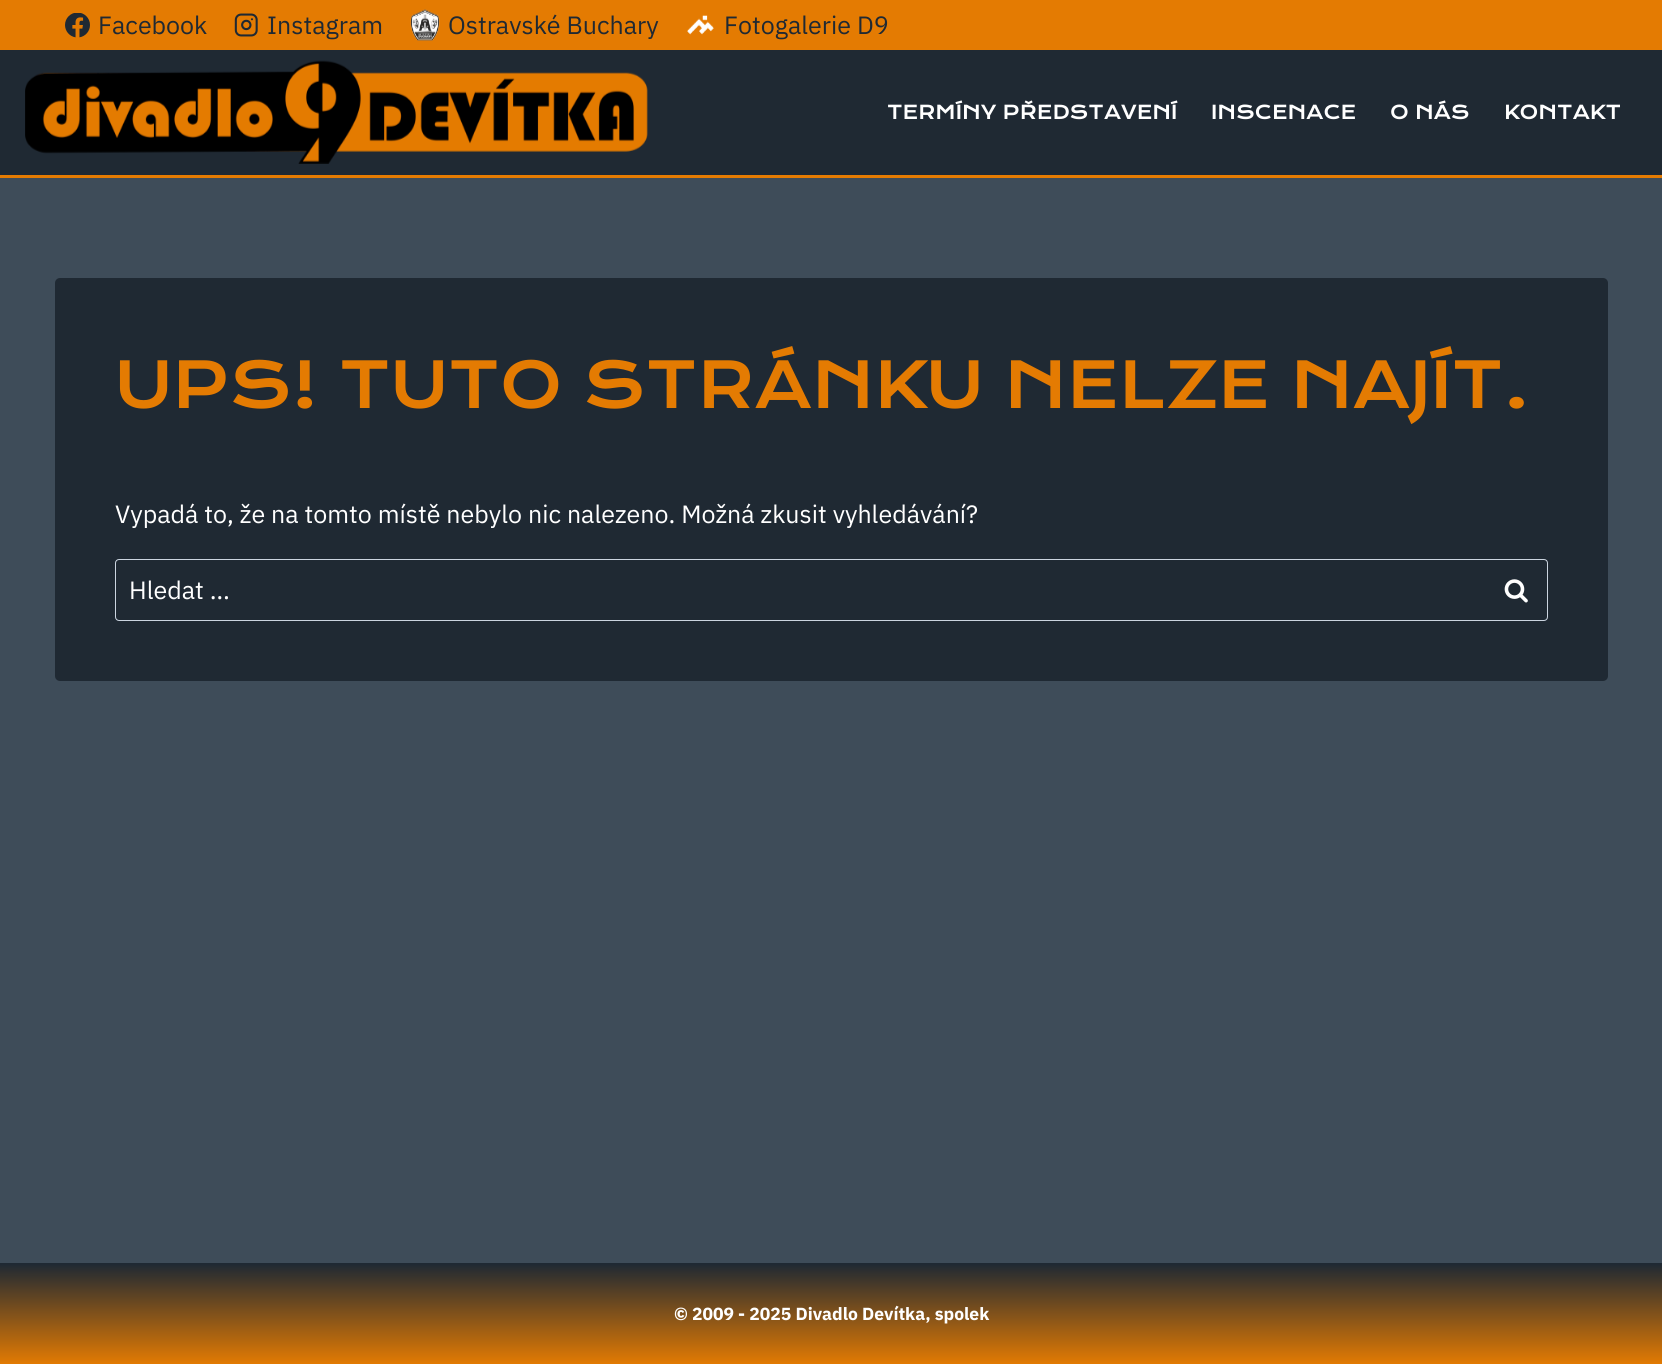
#include <cairo.h>
#include <math.h>
#include <stddef.h>


static void round_rect(cairo_t *cr, double x, double y, double w, double h, double r) {
    cairo_new_sub_path(cr);
    cairo_arc(cr, x + w - r, y + h - r, r, 0, M_PI / 2);
    cairo_arc(cr, x + r, y + h - r, r, M_PI / 2, M_PI);
    cairo_arc(cr, x + r, y + r, r, M_PI, 1.5 * M_PI);
    cairo_arc(cr, x + w - r, y + r, r, 1.5 * M_PI, 2 * M_PI);
    cairo_close_path(cr);
}

static void picture(cairo_t *cr, const char *path, double x, double y, double w, double h) {
    cairo_surface_t *image = cairo_image_surface_create_from_png(path);
    cairo_save(cr);
    cairo_set_source_surface(cr, image, x, y);
    cairo_rectangle(cr, x, y, w, h);
    cairo_fill(cr);
    cairo_restore(cr);
    cairo_surface_destroy(image);
}

int main(void) {
    cairo_surface_t *surface = cairo_image_surface_create(CAIRO_FORMAT_RGB24, 1662, 1364);
    cairo_t *cr = cairo_create(surface);
    cairo_font_options_t *options = cairo_font_options_create();
    cairo_font_options_set_hint_metrics(options, CAIRO_HINT_METRICS_OFF);
    cairo_font_options_set_hint_style(options, CAIRO_HINT_STYLE_NONE);
    cairo_set_font_options(cr, options);
    cairo_set_miter_limit(cr, 4);
    cairo_pattern_t *gradient;
    cairo_set_source_rgb(cr, 0.243, 0.298, 0.349);
    cairo_paint(cr);
    cairo_set_source_rgb(cr, 0.122, 0.161, 0.2);
    cairo_rectangle(cr, 0, 50, 1662, 125);
    cairo_fill(cr);
    cairo_set_source_rgb(cr, 0.894, 0.482, 0.008);
    cairo_rectangle(cr, 0, 0, 1662, 50);
    cairo_fill(cr);
    picture(cr, "img1.png", 65, 13, 25, 25);
    cairo_select_font_face(cr, "IBM Plex Sans", CAIRO_FONT_SLANT_NORMAL, CAIRO_FONT_WEIGHT_NORMAL);
    cairo_set_font_size(cr, 25);
    cairo_set_source_rgb(cr, 0.122, 0.161, 0.2);
    cairo_move_to(cr, 98, 34);
    cairo_show_text(cr, "Facebook");
    picture(cr, "img2.png", 234, 13, 24, 24);
    cairo_move_to(cr, 267, 34);
    cairo_show_text(cr, "Instagram");
    picture(cr, "img3.png", 410, 9, 30, 32);
    cairo_move_to(cr, 448, 34);
    cairo_show_text(cr, "Ostravské Buchary");
    picture(cr, "img4.png", 687, 15, 27, 20);
    cairo_move_to(cr, 724, 34);
    cairo_show_text(cr, "Fotogalerie D9");
    cairo_set_source_rgb(cr, 0.894, 0.482, 0.008);
    cairo_rectangle(cr, 0, 175, 1662, 3);
    cairo_fill(cr);
    picture(cr, "img5.png", 25, 60, 623, 104);
    cairo_select_font_face(cr, "Krona One", CAIRO_FONT_SLANT_NORMAL, CAIRO_FONT_WEIGHT_NORMAL);
    cairo_set_font_size(cr, 18.75);
    cairo_set_source_rgb(cr, 1, 1, 1);
    cairo_move_to(cr, 887, 119);
    cairo_show_text(cr, "TERMÍNY PŘEDSTAVENÍ");
    cairo_move_to(cr, 1211, 119);
    cairo_show_text(cr, "INSCENACE");
    cairo_move_to(cr, 1390, 119);
    cairo_show_text(cr, "O NÁS");
    cairo_move_to(cr, 1504, 119);
    cairo_show_text(cr, "KONTAKT");
    cairo_set_source_rgb(cr, 0.122, 0.161, 0.2);
    round_rect(cr, 55, 278, 1553, 403, 5);
    cairo_fill(cr);
    cairo_set_font_size(cr, 62.5);
    cairo_set_source_rgb(cr, 0.894, 0.482, 0.008);
    cairo_move_to(cr, 115, 408);
    cairo_show_text(cr, "UPS! TUTO STRÁNKU NELZE NAJÍT.");
    cairo_select_font_face(cr, "IBM Plex Sans", CAIRO_FONT_SLANT_NORMAL, CAIRO_FONT_WEIGHT_NORMAL);
    cairo_set_font_size(cr, 25);
    cairo_set_source_rgb(cr, 1, 1, 1);
    cairo_move_to(cr, 115, 523);
    cairo_show_text(cr, "Vypadá to, že na tomto místě nebylo nic nalezeno. Možná zkusit vyhledávání?");
    round_rect(cr, 115.5, 559.5, 1432, 61, 3.5);
    cairo_set_source_rgb(cr, 0.796, 0.835, 0.878);
    cairo_set_line_width(cr, 1);
    cairo_stroke(cr);
    cairo_set_source_rgb(cr, 1, 1, 1);
    cairo_move_to(cr, 129, 599);
    cairo_show_text(cr, "Hledat …");
    picture(cr, "img6.png", 1504, 579, 24, 24);
    gradient = cairo_pattern_create_linear(831, 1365, 831, 1263);
    cairo_pattern_add_color_stop_rgba(gradient, 0, 0.894, 0.482, 0.008, 1);
    cairo_pattern_add_color_stop_rgba(gradient, 0.99, 0.122, 0.161, 0.2, 1);
    cairo_set_source(cr, gradient);
    cairo_pattern_destroy(gradient);
    cairo_rectangle(cr, 0, 1263, 1662, 101);
    cairo_fill(cr);
    cairo_select_font_face(cr, "IBM Plex Sans", CAIRO_FONT_SLANT_NORMAL, CAIRO_FONT_WEIGHT_BOLD);
    cairo_set_font_size(cr, 17.5);
    cairo_set_source_rgb(cr, 1, 1, 1);
    cairo_move_to(cr, 674, 1320);
    cairo_show_text(cr, "© 2009 - 2025 Divadlo Devítka, spolek");
    cairo_surface_write_to_png(surface, "page.png");
    cairo_font_options_destroy(options);
    cairo_destroy(cr);
    cairo_surface_destroy(surface);
    return 0;
}
